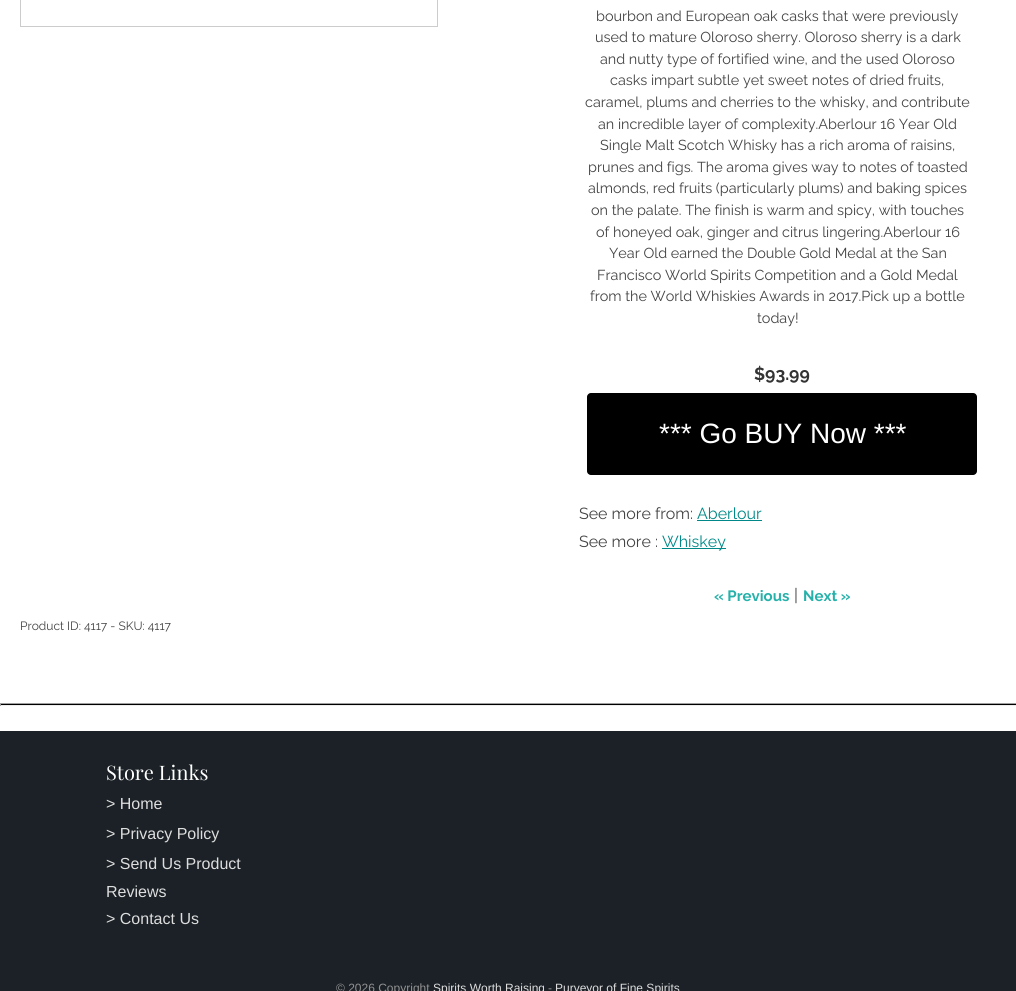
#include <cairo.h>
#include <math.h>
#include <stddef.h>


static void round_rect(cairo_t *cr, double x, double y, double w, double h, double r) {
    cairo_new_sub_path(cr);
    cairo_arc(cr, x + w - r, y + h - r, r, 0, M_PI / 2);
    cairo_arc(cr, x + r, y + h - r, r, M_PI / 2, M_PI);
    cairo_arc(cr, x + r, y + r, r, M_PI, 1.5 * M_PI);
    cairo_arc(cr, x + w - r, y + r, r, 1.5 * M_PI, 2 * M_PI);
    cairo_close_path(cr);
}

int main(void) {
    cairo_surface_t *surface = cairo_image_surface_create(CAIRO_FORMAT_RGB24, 1016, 991);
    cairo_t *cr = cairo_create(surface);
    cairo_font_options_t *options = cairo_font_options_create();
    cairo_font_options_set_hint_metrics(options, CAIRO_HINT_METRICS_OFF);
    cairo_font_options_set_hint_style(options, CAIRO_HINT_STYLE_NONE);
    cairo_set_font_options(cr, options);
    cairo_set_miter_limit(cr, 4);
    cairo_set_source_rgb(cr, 1, 1, 1);
    cairo_paint(cr);
    cairo_rectangle(cr, 20.5, -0.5, 417, 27);
    cairo_set_source_rgb(cr, 0.8, 0.8, 0.8);
    cairo_set_line_width(cr, 1);
    cairo_stroke(cr);
    cairo_select_font_face(cr, "Raleway", CAIRO_FONT_SLANT_NORMAL, CAIRO_FONT_WEIGHT_NORMAL);
    cairo_set_font_size(cr, 14.4);
    cairo_set_source_rgb(cr, 0.267, 0.267, 0.267);
    cairo_move_to(cr, 596, 21);
    cairo_show_text(cr, "bourbon and European oak casks that were previously");
    cairo_move_to(cr, 595, 42);
    cairo_show_text(cr, "used to mature Oloroso sherry. Oloroso sherry is a dark");
    cairo_move_to(cr, 600, 64);
    cairo_show_text(cr, "and nutty type of fortified wine, and the used Oloroso");
    cairo_move_to(cr, 610, 85);
    cairo_show_text(cr, "casks impart subtle yet sweet notes of dried fruits,");
    cairo_move_to(cr, 585, 107);
    cairo_show_text(cr, "caramel, plums and cherries to the whisky, and contribute");
    cairo_move_to(cr, 598, 129);
    cairo_show_text(cr, "an incredible layer of complexity.Aberlour 16 Year Old");
    cairo_move_to(cr, 600, 150);
    cairo_show_text(cr, "Single Malt Scotch Whisky has a rich aroma of raisins,");
    cairo_move_to(cr, 588, 172);
    cairo_show_text(cr, "prunes and figs. The aroma gives way to notes of toasted");
    cairo_move_to(cr, 588, 193);
    cairo_show_text(cr, "almonds, red fruits (particularly plums) and baking spices");
    cairo_move_to(cr, 591, 215);
    cairo_show_text(cr, "on the palate. The finish is warm and spicy, with touches");
    cairo_move_to(cr, 596, 237);
    cairo_show_text(cr, "of honeyed oak, ginger and citrus lingering.Aberlour 16");
    cairo_move_to(cr, 609, 258);
    cairo_show_text(cr, "Year Old earned the Double Gold Medal at the San");
    cairo_move_to(cr, 597, 280);
    cairo_show_text(cr, "Francisco World Spirits Competition and a Gold Medal");
    cairo_move_to(cr, 590, 301);
    cairo_show_text(cr, "from the World Whiskies Awards in 2017.Pick up a bottle");
    cairo_move_to(cr, 757, 323);
    cairo_show_text(cr, "today!");
    cairo_select_font_face(cr, "Raleway", CAIRO_FONT_SLANT_NORMAL, CAIRO_FONT_WEIGHT_BOLD);
    cairo_set_font_size(cr, 17.5);
    cairo_set_source_rgb(cr, 0.2, 0.2, 0.2);
    cairo_move_to(cr, 754, 380);
    cairo_show_text(cr, "$93.99");
    cairo_set_source_rgb(cr, 0, 0, 0);
    round_rect(cr, 587, 393, 390, 82, 4);
    cairo_fill(cr);
    cairo_select_font_face(cr, "Liberation Sans", CAIRO_FONT_SLANT_NORMAL, CAIRO_FONT_WEIGHT_NORMAL);
    cairo_set_font_size(cr, 28);
    cairo_set_source_rgb(cr, 1, 1, 1);
    cairo_move_to(cr, 659, 443);
    cairo_show_text(cr, "*** Go BUY Now ***");
    cairo_select_font_face(cr, "Raleway", CAIRO_FONT_SLANT_NORMAL, CAIRO_FONT_WEIGHT_NORMAL);
    cairo_set_font_size(cr, 16);
    cairo_set_source_rgb(cr, 0.267, 0.267, 0.267);
    cairo_move_to(cr, 579, 519);
    cairo_show_text(cr, "See more from:");
    cairo_set_source_rgb(cr, 0, 0.533, 0.533);
    cairo_move_to(cr, 697, 519);
    cairo_show_text(cr, "Aberlour");
    cairo_rectangle(cr, 697, 520, 65, 1);
    cairo_fill(cr);
    cairo_set_source_rgb(cr, 0.267, 0.267, 0.267);
    cairo_move_to(cr, 579, 547);
    cairo_show_text(cr, "See more :");
    cairo_set_source_rgb(cr, 0, 0.533, 0.533);
    cairo_rectangle(cr, 662, 548, 64, 1);
    cairo_fill(cr);
    cairo_move_to(cr, 662, 547);
    cairo_show_text(cr, "Whiskey");
    cairo_select_font_face(cr, "Raleway", CAIRO_FONT_SLANT_NORMAL, CAIRO_FONT_WEIGHT_BOLD);
    cairo_set_font_size(cr, 15);
    cairo_set_source_rgb(cr, 0.149, 0.694, 0.667);
    cairo_move_to(cr, 714, 601);
    cairo_show_text(cr, "« Previous");
    cairo_select_font_face(cr, "Raleway", CAIRO_FONT_SLANT_NORMAL, CAIRO_FONT_WEIGHT_NORMAL);
    cairo_set_font_size(cr, 17);
    cairo_set_source_rgb(cr, 0.267, 0.267, 0.267);
    cairo_move_to(cr, 794, 601);
    cairo_show_text(cr, "|");
    cairo_select_font_face(cr, "Raleway", CAIRO_FONT_SLANT_NORMAL, CAIRO_FONT_WEIGHT_BOLD);
    cairo_set_font_size(cr, 15);
    cairo_set_source_rgb(cr, 0.149, 0.694, 0.667);
    cairo_move_to(cr, 803, 601);
    cairo_show_text(cr, "Next »");
    cairo_select_font_face(cr, "Raleway", CAIRO_FONT_SLANT_NORMAL, CAIRO_FONT_WEIGHT_NORMAL);
    cairo_set_font_size(cr, 12);
    cairo_set_source_rgb(cr, 0.267, 0.267, 0.267);
    cairo_move_to(cr, 20, 630);
    cairo_show_text(cr, "Product ID: 4117 - SKU: 4117");
    cairo_set_source_rgb(cr, 0, 0, 0);
    cairo_rectangle(cr, 0, 704, 1016, 1);
    cairo_fill(cr);
    cairo_set_source_rgb(cr, 0.624, 0.624, 0.624);
    cairo_rectangle(cr, 0, 703, 1016, 1);
    cairo_fill(cr);
    cairo_set_source_rgb(cr, 0.933, 0.933, 0.933);
    cairo_rectangle(cr, 0, 705, 1016, 1);
    cairo_fill(cr);
    cairo_set_source_rgb(cr, 0.624, 0.624, 0.624);
    cairo_rectangle(cr, 0, 703, 1, 3);
    cairo_fill(cr);
    cairo_set_source_rgb(cr, 0.106, 0.129, 0.149);
    cairo_rectangle(cr, 0, 731, 1016, 260);
    cairo_fill(cr);
    cairo_select_font_face(cr, "Playfair Display", CAIRO_FONT_SLANT_NORMAL, CAIRO_FONT_WEIGHT_NORMAL);
    cairo_set_font_size(cr, 20);
    cairo_set_source_rgb(cr, 1, 1, 1);
    cairo_move_to(cr, 106, 780);
    cairo_show_text(cr, "Store Links");
    cairo_select_font_face(cr, "Liberation Sans", CAIRO_FONT_SLANT_NORMAL, CAIRO_FONT_WEIGHT_NORMAL);
    cairo_set_font_size(cr, 16);
    cairo_set_source_rgb(cr, 0.867, 0.867, 0.867);
    cairo_move_to(cr, 106, 809);
    cairo_show_text(cr, "> Home");
    cairo_move_to(cr, 106, 839);
    cairo_show_text(cr, "> Privacy Policy");
    cairo_move_to(cr, 106, 869);
    cairo_show_text(cr, "> Send Us Product");
    cairo_move_to(cr, 106, 897);
    cairo_show_text(cr, "Reviews");
    cairo_move_to(cr, 106, 924);
    cairo_show_text(cr, "> Contact Us");
    cairo_set_font_size(cr, 12);
    cairo_set_source_rgb(cr, 0.569, 0.569, 0.569);
    cairo_move_to(cr, 336, 992);
    cairo_show_text(cr, "© 2026 Copyright");
    cairo_set_source_rgb(cr, 0.867, 0.867, 0.867);
    cairo_move_to(cr, 433, 992);
    cairo_show_text(cr, "Spirits Worth Raising");
    cairo_set_source_rgb(cr, 0.569, 0.569, 0.569);
    cairo_move_to(cr, 548, 992);
    cairo_show_text(cr, "-");
    cairo_set_source_rgb(cr, 0.867, 0.867, 0.867);
    cairo_move_to(cr, 555, 992);
    cairo_show_text(cr, "Purveyor of Fine Spirits");
    cairo_surface_write_to_png(surface, "page.png");
    cairo_font_options_destroy(options);
    cairo_destroy(cr);
    cairo_surface_destroy(surface);
    return 0;
}
